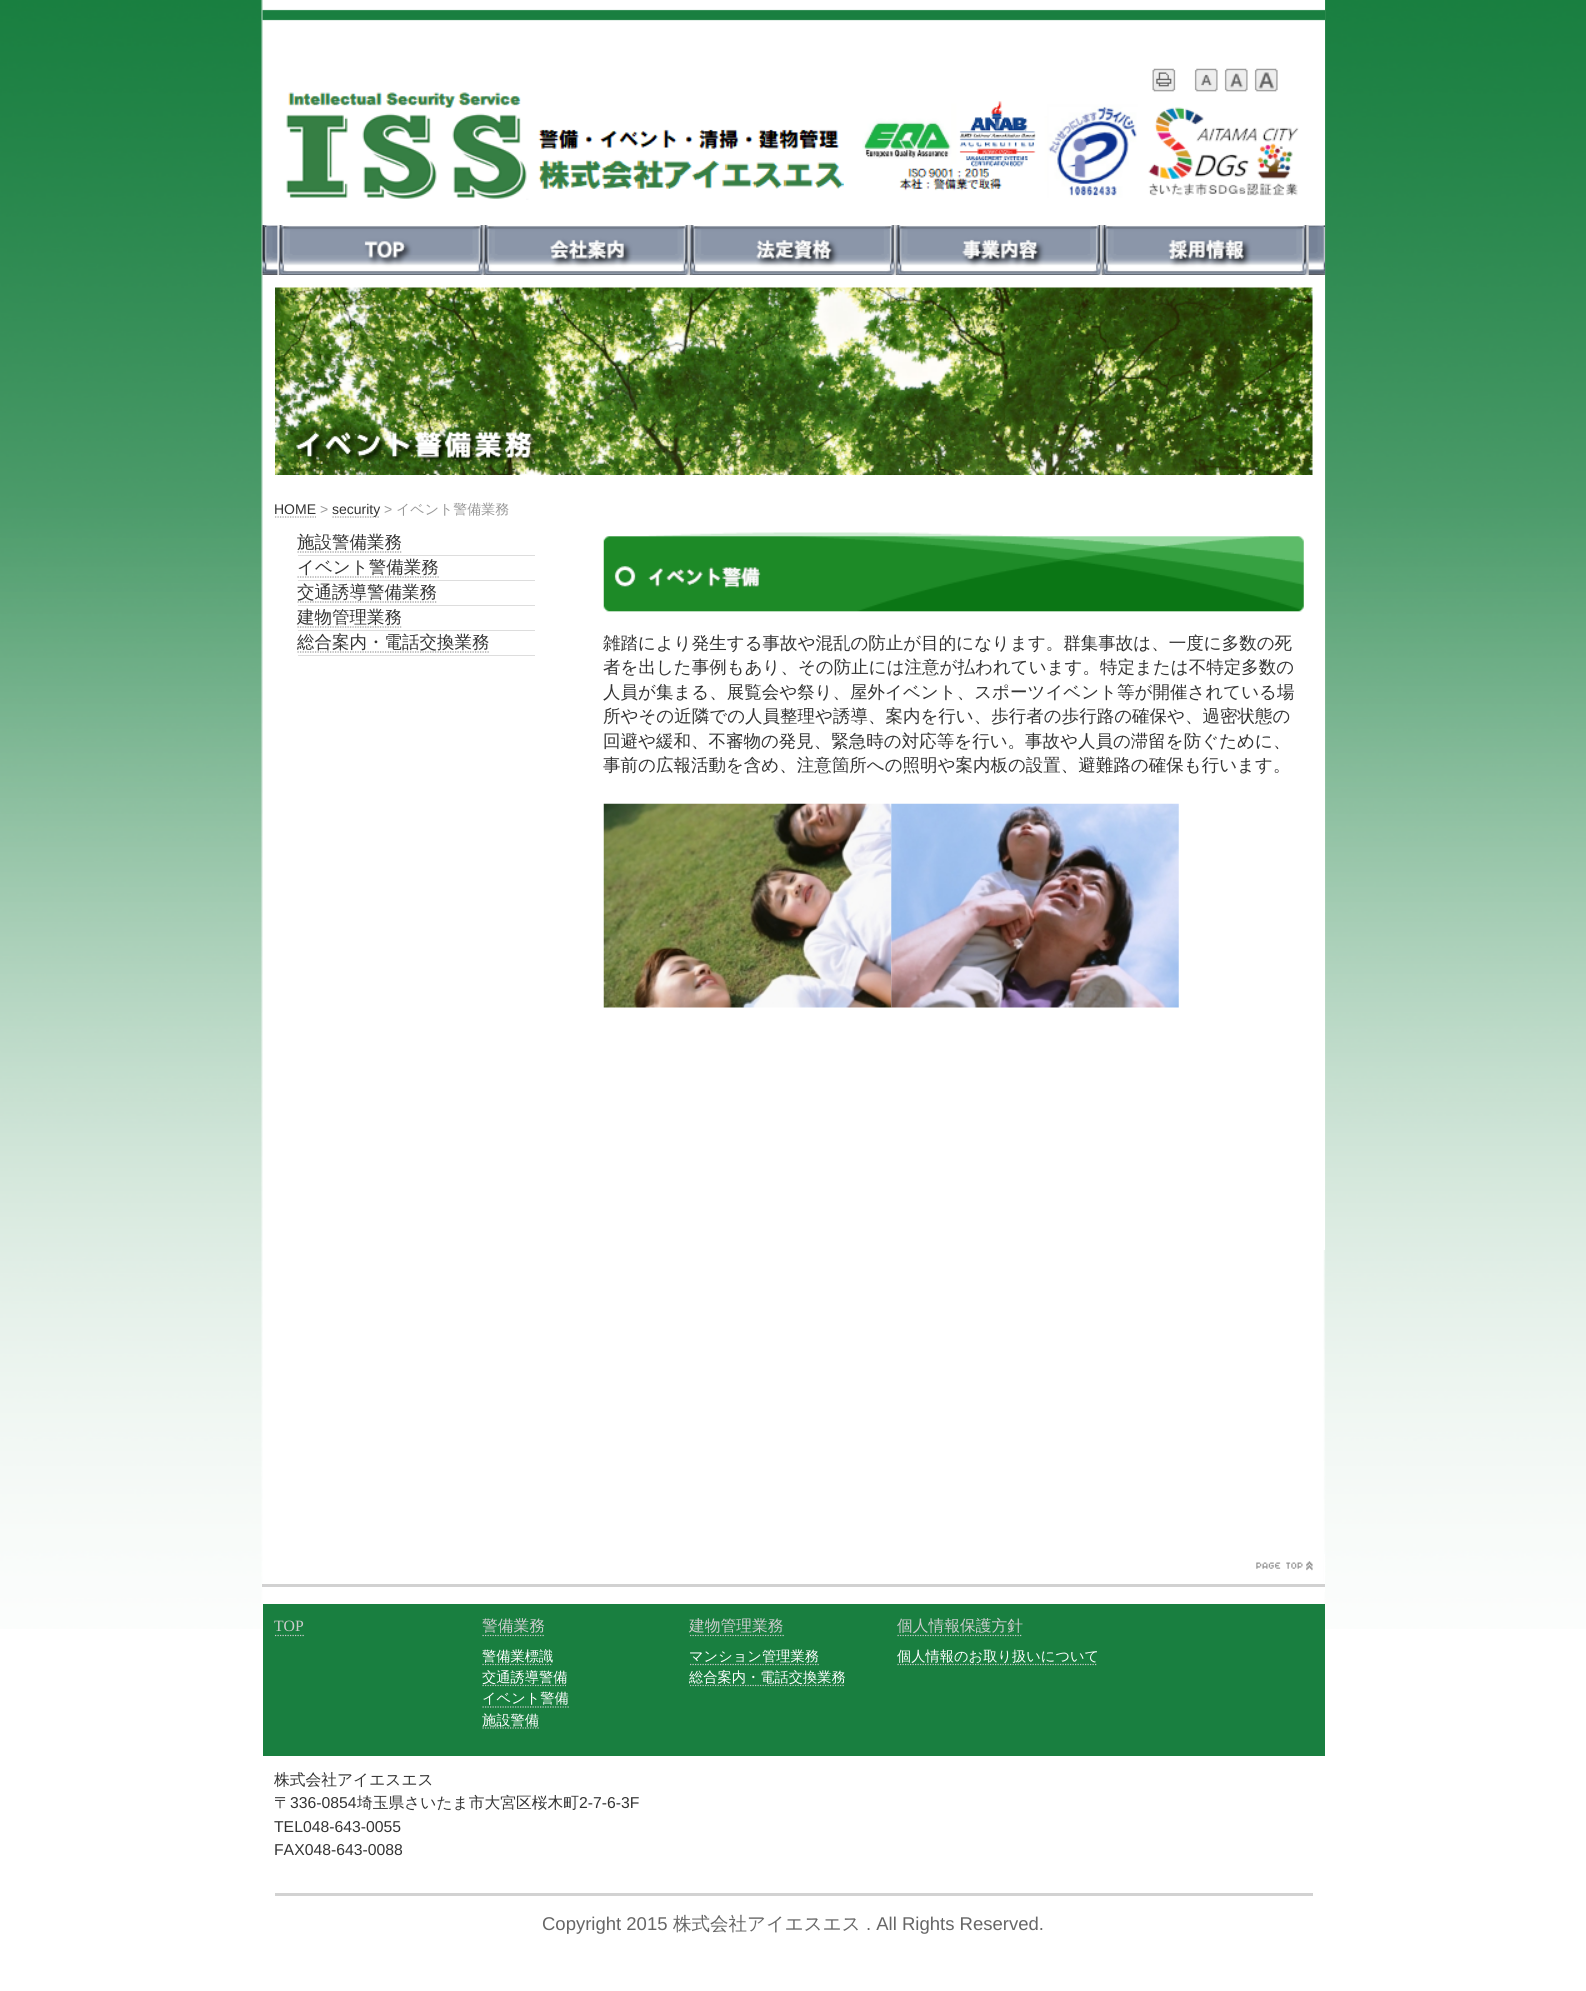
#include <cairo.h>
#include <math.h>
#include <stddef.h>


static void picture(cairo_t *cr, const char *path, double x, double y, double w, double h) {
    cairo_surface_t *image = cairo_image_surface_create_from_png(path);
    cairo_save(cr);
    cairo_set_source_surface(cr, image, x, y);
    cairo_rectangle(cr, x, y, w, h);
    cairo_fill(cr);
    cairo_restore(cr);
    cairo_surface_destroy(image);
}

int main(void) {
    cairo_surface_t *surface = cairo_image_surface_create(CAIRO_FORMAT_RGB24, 1586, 1991);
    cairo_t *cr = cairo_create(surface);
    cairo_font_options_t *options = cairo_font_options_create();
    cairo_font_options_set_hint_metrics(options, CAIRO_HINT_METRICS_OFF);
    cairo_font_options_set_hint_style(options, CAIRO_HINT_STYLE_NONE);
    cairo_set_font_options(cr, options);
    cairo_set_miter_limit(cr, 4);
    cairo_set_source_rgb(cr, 1, 1, 1);
    cairo_paint(cr);
    picture(cr, "img1.png", 0, 0, 1586, 1629);
    cairo_set_source_rgb(cr, 1, 1, 1);
    cairo_rectangle(cr, 1323, 0, 2, 225);
    cairo_fill(cr);
    picture(cr, "img2.png", 262, 9, 1063, 12);
    picture(cr, "img3.png", 1152, 68, 24, 24);
    picture(cr, "img4.png", 1194, 68, 24, 24);
    picture(cr, "img5.png", 1224, 68, 24, 24);
    picture(cr, "img6.png", 1254, 68, 24, 24);
    picture(cr, "img7.png", 286, 92, 1013, 108);
    cairo_rectangle(cr, 1323, 275, 2, 975);
    cairo_fill(cr);
    picture(cr, "img8.png", 262, 225, 1063, 50);
    picture(cr, "img9.png", 277, 225, 207, 50);
    picture(cr, "img10.png", 483, 225, 207, 50);
    picture(cr, "img11.png", 690, 225, 207, 50);
    picture(cr, "img12.png", 896, 225, 207, 50);
    picture(cr, "img13.png", 1102, 225, 207, 50);
    picture(cr, "img14.png", 275, 287, 1038, 188);
    cairo_select_font_face(cr, "Liberation Sans", CAIRO_FONT_SLANT_NORMAL, CAIRO_FONT_WEIGHT_NORMAL);
    cairo_set_font_size(cr, 14);
    cairo_set_source_rgb(cr, 0.2, 0.2, 0.2);
    cairo_move_to(cr, 274, 514);
    cairo_show_text(cr, "HOME");
    cairo_new_path(cr);
    cairo_move_to(cr, 275, 517);
    cairo_line_to(cr, 316, 517);
    cairo_set_source_rgb(cr, 0.6, 0.6, 0.6);
    cairo_set_line_width(cr, 1.2);
    cairo_set_dash(cr, (double[]){1.25, 1.25}, 2, 0);
    cairo_stroke(cr);
    cairo_move_to(cr, 320, 514);
    cairo_show_text(cr, ">");
    cairo_new_path(cr);
    cairo_move_to(cr, 332.5, 517);
    cairo_line_to(cr, 380, 517);
    cairo_stroke(cr);
    cairo_set_source_rgb(cr, 0.2, 0.2, 0.2);
    cairo_move_to(cr, 332, 514);
    cairo_show_text(cr, "security");
    cairo_set_source_rgb(cr, 0.6, 0.6, 0.6);
    cairo_move_to(cr, 384, 514);
    cairo_show_text(cr, ">");
    cairo_select_font_face(cr, "WenQuanYi Zen Hei Medium", CAIRO_FONT_SLANT_NORMAL, CAIRO_FONT_WEIGHT_NORMAL);
    cairo_move_to(cr, 396, 514);
    cairo_show_text(cr, "イベント警備業務");
    cairo_set_source_rgb(cr, 0.867, 0.867, 0.867);
    cairo_rectangle(cr, 298, 555, 237, 1);
    cairo_fill(cr);
    cairo_set_font_size(cr, 17.5);
    cairo_set_source_rgb(cr, 0.2, 0.2, 0.2);
    cairo_move_to(cr, 297, 548);
    cairo_show_text(cr, "施設警備業務");
    cairo_new_path(cr);
    cairo_move_to(cr, 297.5, 552);
    cairo_line_to(cr, 402.5, 552);
    cairo_set_source_rgb(cr, 0.6, 0.6, 0.6);
    cairo_stroke(cr);
    cairo_set_source_rgb(cr, 0.867, 0.867, 0.867);
    cairo_rectangle(cr, 298, 580, 237, 1);
    cairo_fill(cr);
    cairo_set_source_rgb(cr, 0.2, 0.2, 0.2);
    cairo_move_to(cr, 297, 573);
    cairo_show_text(cr, "イベント警備業務");
    cairo_new_path(cr);
    cairo_move_to(cr, 297.5, 577);
    cairo_line_to(cr, 439, 577);
    cairo_set_source_rgb(cr, 0.6, 0.6, 0.6);
    cairo_stroke(cr);
    cairo_set_source_rgb(cr, 0.867, 0.867, 0.867);
    cairo_rectangle(cr, 298, 605, 237, 1);
    cairo_fill(cr);
    cairo_set_source_rgb(cr, 0.2, 0.2, 0.2);
    cairo_move_to(cr, 297, 598);
    cairo_show_text(cr, "交通誘導警備業務");
    cairo_new_path(cr);
    cairo_move_to(cr, 297.5, 602);
    cairo_line_to(cr, 437.5, 602);
    cairo_set_source_rgb(cr, 0.6, 0.6, 0.6);
    cairo_stroke(cr);
    cairo_set_source_rgb(cr, 0.867, 0.867, 0.867);
    cairo_rectangle(cr, 298, 630, 237, 1);
    cairo_fill(cr);
    cairo_set_source_rgb(cr, 0.2, 0.2, 0.2);
    cairo_move_to(cr, 297, 623);
    cairo_show_text(cr, "建物管理業務");
    cairo_new_path(cr);
    cairo_move_to(cr, 297.5, 627);
    cairo_line_to(cr, 402.5, 627);
    cairo_set_source_rgb(cr, 0.6, 0.6, 0.6);
    cairo_stroke(cr);
    cairo_set_source_rgb(cr, 0.867, 0.867, 0.867);
    cairo_rectangle(cr, 298, 655, 237, 1);
    cairo_fill(cr);
    cairo_set_source_rgb(cr, 0.2, 0.2, 0.2);
    cairo_move_to(cr, 297, 648);
    cairo_show_text(cr, "総合案内・電話交換業務");
    cairo_new_path(cr);
    cairo_move_to(cr, 297.5, 652);
    cairo_line_to(cr, 490, 652);
    cairo_set_source_rgb(cr, 0.6, 0.6, 0.6);
    cairo_stroke(cr);
    picture(cr, "img15.png", 603, 532, 701, 80);
    cairo_set_source_rgb(cr, 0.2, 0.2, 0.2);
    cairo_move_to(cr, 603, 649);
    cairo_show_text(cr, "雑踏により発生する事故や混乱の防止が目的になります。群集事故は、一度に多数の死");
    cairo_move_to(cr, 603, 673);
    cairo_show_text(cr, "者を出した事例もあり、その防止には注意が払われています。特定または不特定多数の");
    cairo_move_to(cr, 603, 698);
    cairo_show_text(cr, "人員が集まる、展覧会や祭り、屋外イベント、スポーツイベント等が開催されている場");
    cairo_move_to(cr, 603, 722);
    cairo_show_text(cr, "所やその近隣での人員整理や誘導、案内を行い、歩行者の歩行路の確保や、過密状態の");
    cairo_move_to(cr, 603, 747);
    cairo_show_text(cr, "回避や緩和、不審物の発見、緊急時の対応等を行い。事故や人員の滞留を防ぐために、");
    cairo_move_to(cr, 603, 771);
    cairo_show_text(cr, "事前の広報活動を含め、注意箇所への照明や案内板の設置、避難路の確保も行います。");
    picture(cr, "img16.png", 603, 803, 289, 205);
    picture(cr, "img17.png", 891, 803, 288, 205);
    cairo_set_source_rgb(cr, 1, 1, 1);
    cairo_rectangle(cr, 1324, 1554, 1, 38);
    cairo_fill(cr);
    picture(cr, "img18.png", 1256, 1561, 57, 10);
    cairo_set_source_rgb(cr, 0.82, 0.82, 0.82);
    cairo_rectangle(cr, 262, 1584, 1063, 3);
    cairo_fill(cr);
    cairo_set_source_rgb(cr, 0.098, 0.498, 0.251);
    cairo_rectangle(cr, 263, 1604, 1062, 152);
    cairo_fill(cr);
    cairo_select_font_face(cr, "Liberation Serif", CAIRO_FONT_SLANT_NORMAL, CAIRO_FONT_WEIGHT_NORMAL);
    cairo_set_font_size(cr, 15.75);
    cairo_set_source_rgb(cr, 0.8, 0.8, 0.8);
    cairo_move_to(cr, 274, 1631);
    cairo_show_text(cr, "TOP");
    cairo_new_path(cr);
    cairo_move_to(cr, 275, 1635.5);
    cairo_line_to(cr, 304, 1635.5);
    cairo_stroke(cr);
    cairo_select_font_face(cr, "WenQuanYi Zen Hei Medium", CAIRO_FONT_SLANT_NORMAL, CAIRO_FONT_WEIGHT_NORMAL);
    cairo_move_to(cr, 482, 1631);
    cairo_show_text(cr, "警備業務");
    cairo_new_path(cr);
    cairo_move_to(cr, 482.5, 1635.5);
    cairo_line_to(cr, 545, 1635.5);
    cairo_stroke(cr);
    cairo_set_font_size(cr, 14.25);
    cairo_set_source_rgb(cr, 1, 1, 1);
    cairo_move_to(cr, 482, 1661);
    cairo_show_text(cr, "警備業標識");
    cairo_new_path(cr);
    cairo_move_to(cr, 482.5, 1664.5);
    cairo_line_to(cr, 552.5, 1664.5);
    cairo_set_source_rgb(cr, 0.8, 0.8, 0.8);
    cairo_stroke(cr);
    cairo_new_path(cr);
    cairo_move_to(cr, 482.5, 1685.5);
    cairo_line_to(cr, 566, 1685.5);
    cairo_stroke(cr);
    cairo_set_source_rgb(cr, 1, 1, 1);
    cairo_move_to(cr, 482, 1682);
    cairo_show_text(cr, "交通誘導警備");
    cairo_move_to(cr, 482, 1703);
    cairo_show_text(cr, "イベント警備");
    cairo_new_path(cr);
    cairo_move_to(cr, 482.5, 1707);
    cairo_line_to(cr, 569, 1707);
    cairo_set_source_rgb(cr, 0.8, 0.8, 0.8);
    cairo_stroke(cr);
    cairo_set_source_rgb(cr, 1, 1, 1);
    cairo_move_to(cr, 482, 1725);
    cairo_show_text(cr, "施設警備");
    cairo_new_path(cr);
    cairo_move_to(cr, 482.5, 1728);
    cairo_line_to(cr, 539, 1728);
    cairo_set_source_rgb(cr, 0.8, 0.8, 0.8);
    cairo_stroke(cr);
    cairo_set_font_size(cr, 15.75);
    cairo_move_to(cr, 689, 1631);
    cairo_show_text(cr, "建物管理業務");
    cairo_new_path(cr);
    cairo_move_to(cr, 690, 1635.5);
    cairo_line_to(cr, 784, 1635.5);
    cairo_stroke(cr);
    cairo_set_font_size(cr, 14.25);
    cairo_set_source_rgb(cr, 1, 1, 1);
    cairo_move_to(cr, 689, 1661);
    cairo_show_text(cr, "マンション管理業務");
    cairo_new_path(cr);
    cairo_move_to(cr, 690, 1664.5);
    cairo_line_to(cr, 819, 1664.5);
    cairo_set_source_rgb(cr, 0.8, 0.8, 0.8);
    cairo_stroke(cr);
    cairo_new_path(cr);
    cairo_move_to(cr, 690, 1685.5);
    cairo_line_to(cr, 845, 1685.5);
    cairo_stroke(cr);
    cairo_set_source_rgb(cr, 1, 1, 1);
    cairo_move_to(cr, 689, 1682);
    cairo_show_text(cr, "総合案内・電話交換業務");
    cairo_set_font_size(cr, 15.75);
    cairo_set_source_rgb(cr, 0.8, 0.8, 0.8);
    cairo_move_to(cr, 897, 1631);
    cairo_show_text(cr, "個人情報保護方針");
    cairo_new_path(cr);
    cairo_move_to(cr, 897.5, 1635.5);
    cairo_line_to(cr, 1022.5, 1635.5);
    cairo_stroke(cr);
    cairo_new_path(cr);
    cairo_move_to(cr, 897.5, 1664.5);
    cairo_line_to(cr, 1097.5, 1664.5);
    cairo_stroke(cr);
    cairo_set_font_size(cr, 14.25);
    cairo_set_source_rgb(cr, 1, 1, 1);
    cairo_move_to(cr, 897, 1661);
    cairo_show_text(cr, "個人情報のお取り扱いについて");
    cairo_set_font_size(cr, 15.75);
    cairo_set_source_rgb(cr, 0.2, 0.2, 0.2);
    cairo_move_to(cr, 274, 1785);
    cairo_show_text(cr, "株式会社アイエスエス");
    cairo_move_to(cr, 274, 1808);
    cairo_show_text(cr, "〒");
    cairo_select_font_face(cr, "Liberation Sans", CAIRO_FONT_SLANT_NORMAL, CAIRO_FONT_WEIGHT_NORMAL);
    cairo_move_to(cr, 290, 1808);
    cairo_show_text(cr, "336-0854");
    cairo_select_font_face(cr, "WenQuanYi Zen Hei Medium", CAIRO_FONT_SLANT_NORMAL, CAIRO_FONT_WEIGHT_NORMAL);
    cairo_move_to(cr, 357, 1808);
    cairo_show_text(cr, "埼玉県さいたま市大宮区桜木町");
    cairo_select_font_face(cr, "Liberation Sans", CAIRO_FONT_SLANT_NORMAL, CAIRO_FONT_WEIGHT_NORMAL);
    cairo_move_to(cr, 579, 1808);
    cairo_show_text(cr, "2-7-6-3F");
    cairo_move_to(cr, 274, 1832);
    cairo_show_text(cr, "TEL048-643-0055");
    cairo_move_to(cr, 274, 1855);
    cairo_show_text(cr, "FAX048-643-0088");
    cairo_set_source_rgb(cr, 0.824, 0.824, 0.824);
    cairo_rectangle(cr, 275, 1893, 1038, 3);
    cairo_fill(cr);
    cairo_set_font_size(cr, 18.5);
    cairo_set_source_rgb(cr, 0.4, 0.4, 0.4);
    cairo_move_to(cr, 542, 1930);
    cairo_show_text(cr, "Copyright 2015");
    cairo_select_font_face(cr, "WenQuanYi Zen Hei Medium", CAIRO_FONT_SLANT_NORMAL, CAIRO_FONT_WEIGHT_NORMAL);
    cairo_move_to(cr, 673, 1930);
    cairo_show_text(cr, "株式会社アイエスエス");
    cairo_select_font_face(cr, "Liberation Sans", CAIRO_FONT_SLANT_NORMAL, CAIRO_FONT_WEIGHT_NORMAL);
    cairo_move_to(cr, 866, 1930);
    cairo_show_text(cr, ". All Rights Reserved.");
    cairo_surface_write_to_png(surface, "page.png");
    cairo_font_options_destroy(options);
    cairo_destroy(cr);
    cairo_surface_destroy(surface);
    return 0;
}
